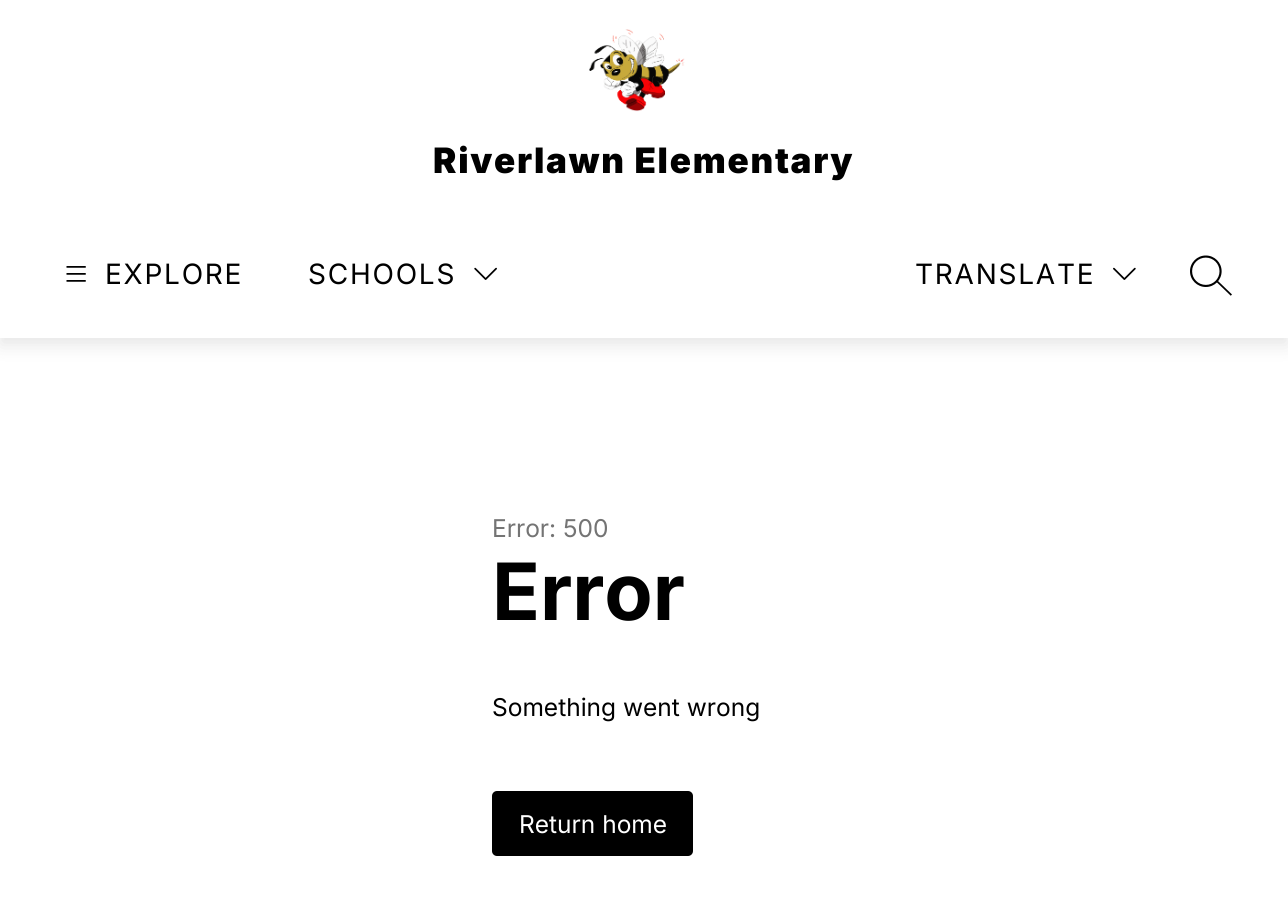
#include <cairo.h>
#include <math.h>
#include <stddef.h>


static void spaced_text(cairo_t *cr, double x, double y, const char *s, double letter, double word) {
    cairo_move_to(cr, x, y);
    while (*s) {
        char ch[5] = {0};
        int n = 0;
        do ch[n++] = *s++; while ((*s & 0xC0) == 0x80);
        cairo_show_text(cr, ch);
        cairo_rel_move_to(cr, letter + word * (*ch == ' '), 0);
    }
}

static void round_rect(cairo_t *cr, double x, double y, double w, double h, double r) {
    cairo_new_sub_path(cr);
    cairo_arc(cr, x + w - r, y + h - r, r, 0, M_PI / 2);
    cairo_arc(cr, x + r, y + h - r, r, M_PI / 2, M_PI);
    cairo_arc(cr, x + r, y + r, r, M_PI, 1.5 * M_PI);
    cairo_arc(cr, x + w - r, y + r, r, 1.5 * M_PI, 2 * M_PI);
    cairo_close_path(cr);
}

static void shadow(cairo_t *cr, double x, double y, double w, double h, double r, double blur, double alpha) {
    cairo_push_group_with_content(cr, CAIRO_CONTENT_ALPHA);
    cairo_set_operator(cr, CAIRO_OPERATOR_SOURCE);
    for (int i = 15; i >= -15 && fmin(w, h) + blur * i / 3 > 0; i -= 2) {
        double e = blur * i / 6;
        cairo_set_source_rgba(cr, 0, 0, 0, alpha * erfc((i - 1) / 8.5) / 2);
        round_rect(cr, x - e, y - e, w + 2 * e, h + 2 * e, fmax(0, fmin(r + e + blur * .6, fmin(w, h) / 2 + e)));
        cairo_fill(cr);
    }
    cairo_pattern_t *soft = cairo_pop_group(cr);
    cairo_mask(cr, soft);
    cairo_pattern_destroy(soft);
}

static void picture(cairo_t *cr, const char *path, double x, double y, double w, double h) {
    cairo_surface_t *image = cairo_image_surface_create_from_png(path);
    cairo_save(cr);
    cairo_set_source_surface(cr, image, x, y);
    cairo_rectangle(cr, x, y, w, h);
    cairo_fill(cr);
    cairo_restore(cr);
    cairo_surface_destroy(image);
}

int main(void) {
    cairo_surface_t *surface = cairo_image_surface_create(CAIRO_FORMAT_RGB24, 1288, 922);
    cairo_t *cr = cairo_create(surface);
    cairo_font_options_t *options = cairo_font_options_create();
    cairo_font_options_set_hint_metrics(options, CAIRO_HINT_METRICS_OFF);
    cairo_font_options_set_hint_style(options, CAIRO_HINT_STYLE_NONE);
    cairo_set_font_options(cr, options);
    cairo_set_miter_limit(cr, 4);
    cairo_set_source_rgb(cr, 1, 1, 1);
    cairo_paint(cr);
    cairo_set_source_rgb(cr, 0, 0, 0);
    shadow(cr, 0, 7, 1288, 338, 0, 9, 0.1);
    cairo_set_source_rgb(cr, 1, 1, 1);
    cairo_rectangle(cr, 0, 0, 1288, 338);
    cairo_fill(cr);
    picture(cr, "img1.png", 589, 29, 96, 83);
    cairo_select_font_face(cr, "Inter Black", CAIRO_FONT_SLANT_NORMAL, CAIRO_FONT_WEIGHT_NORMAL);
    cairo_set_font_size(cr, 35);
    cairo_set_source_rgb(cr, 0, 0, 0);
    spaced_text(cr, 433, 173, "Riverlawn Elementary", 1.75, 0);
    picture(cr, "img2.png", 66, 266, 20, 16);
    cairo_select_font_face(cr, "Inter", CAIRO_FONT_SLANT_NORMAL, CAIRO_FONT_WEIGHT_NORMAL);
    cairo_set_font_size(cr, 28);
    spaced_text(cr, 105, 284, "EXPLORE", 1.75, 0);
    spaced_text(cr, 308, 284, "SCHOOLS", 1.75, 0);
    picture(cr, "img3.png", 474, 267, 23, 13);
    spaced_text(cr, 915, 284, "TRANSLATE", 1.75, 0);
    picture(cr, "img4.png", 1113, 267, 23, 13);
    picture(cr, "img5.png", 1190, 255, 42, 41);
    cairo_set_font_size(cr, 24.5);
    cairo_set_source_rgb(cr, 0.455, 0.455, 0.455);
    cairo_move_to(cr, 492, 537);
    cairo_show_text(cr, "Error: 500");
    cairo_select_font_face(cr, "Inter", CAIRO_FONT_SLANT_NORMAL, CAIRO_FONT_WEIGHT_BOLD);
    cairo_set_font_size(cr, 79);
    cairo_set_source_rgb(cr, 0, 0, 0);
    cairo_move_to(cr, 492, 620);
    cairo_show_text(cr, "Error");
    cairo_select_font_face(cr, "Inter", CAIRO_FONT_SLANT_NORMAL, CAIRO_FONT_WEIGHT_NORMAL);
    cairo_set_font_size(cr, 24.5);
    cairo_move_to(cr, 492, 716);
    cairo_show_text(cr, "Something went wrong");
    round_rect(cr, 492, 791, 201, 65, 5);
    cairo_fill(cr);
    cairo_set_source_rgb(cr, 1, 1, 1);
    cairo_move_to(cr, 519, 833);
    cairo_show_text(cr, "Return home");
    cairo_surface_write_to_png(surface, "page.png");
    cairo_font_options_destroy(options);
    cairo_destroy(cr);
    cairo_surface_destroy(surface);
    return 0;
}
